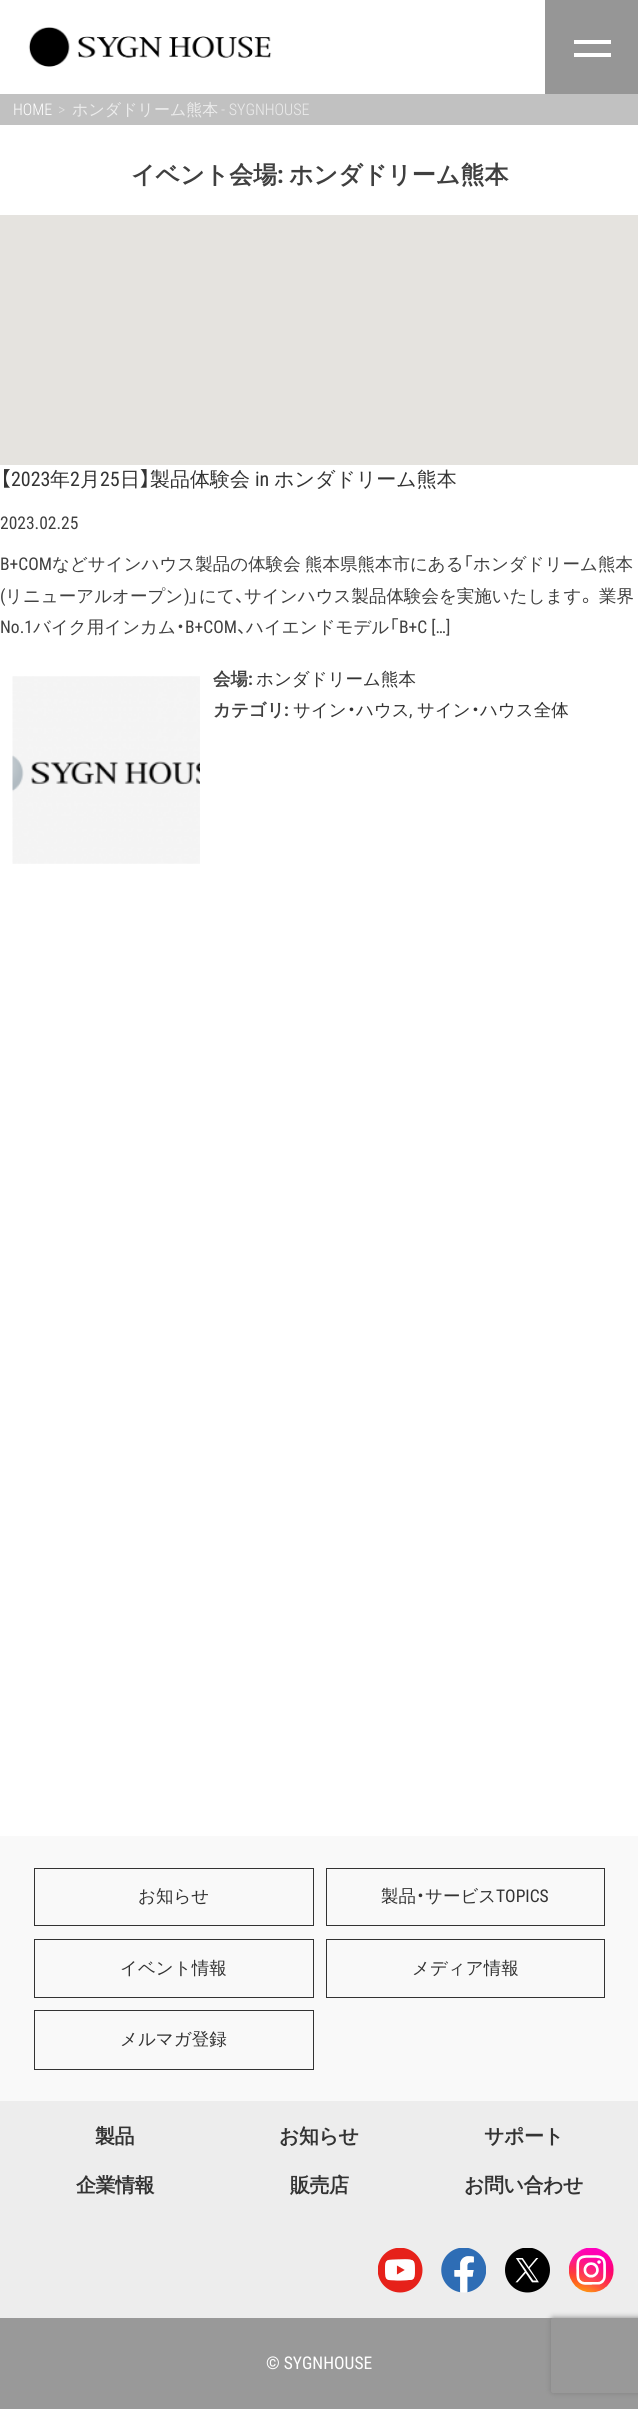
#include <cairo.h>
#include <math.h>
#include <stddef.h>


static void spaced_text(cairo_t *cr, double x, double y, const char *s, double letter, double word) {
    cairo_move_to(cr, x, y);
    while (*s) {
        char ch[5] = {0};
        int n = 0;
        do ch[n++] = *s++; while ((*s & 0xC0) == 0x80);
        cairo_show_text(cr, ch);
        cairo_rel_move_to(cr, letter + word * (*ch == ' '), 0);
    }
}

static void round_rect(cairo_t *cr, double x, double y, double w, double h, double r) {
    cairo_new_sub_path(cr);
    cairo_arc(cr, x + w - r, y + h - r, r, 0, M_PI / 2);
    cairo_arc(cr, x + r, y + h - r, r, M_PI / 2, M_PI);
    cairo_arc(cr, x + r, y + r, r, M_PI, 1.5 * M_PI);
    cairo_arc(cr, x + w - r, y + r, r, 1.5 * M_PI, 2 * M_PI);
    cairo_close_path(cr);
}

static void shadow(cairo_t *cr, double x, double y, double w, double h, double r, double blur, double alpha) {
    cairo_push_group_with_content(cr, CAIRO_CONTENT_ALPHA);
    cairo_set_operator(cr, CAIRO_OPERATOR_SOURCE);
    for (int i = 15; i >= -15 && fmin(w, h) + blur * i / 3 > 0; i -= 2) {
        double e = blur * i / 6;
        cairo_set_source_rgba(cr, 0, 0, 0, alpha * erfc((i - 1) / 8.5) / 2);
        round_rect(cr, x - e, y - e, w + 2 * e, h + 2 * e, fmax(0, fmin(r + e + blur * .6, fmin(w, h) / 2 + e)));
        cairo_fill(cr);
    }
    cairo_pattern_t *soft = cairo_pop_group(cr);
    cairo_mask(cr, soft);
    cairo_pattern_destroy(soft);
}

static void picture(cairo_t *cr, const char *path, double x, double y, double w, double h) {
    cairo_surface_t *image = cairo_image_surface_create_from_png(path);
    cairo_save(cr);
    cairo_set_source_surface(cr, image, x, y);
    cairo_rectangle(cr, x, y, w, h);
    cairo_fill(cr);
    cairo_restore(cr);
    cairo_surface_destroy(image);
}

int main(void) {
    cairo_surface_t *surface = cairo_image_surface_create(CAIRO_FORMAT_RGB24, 638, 2409);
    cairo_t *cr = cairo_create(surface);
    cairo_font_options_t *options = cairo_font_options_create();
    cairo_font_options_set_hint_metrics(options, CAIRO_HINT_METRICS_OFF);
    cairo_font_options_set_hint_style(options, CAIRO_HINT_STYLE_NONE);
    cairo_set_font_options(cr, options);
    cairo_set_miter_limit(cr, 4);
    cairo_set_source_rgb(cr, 1, 1, 1);
    cairo_paint(cr);
    picture(cr, "img1.png", 28, 27, 244, 40);
    cairo_set_source_rgb(cr, 0.588, 0.588, 0.588);
    cairo_rectangle(cr, 545, 0, 93, 94);
    cairo_fill(cr);
    cairo_set_source_rgb(cr, 1, 1, 1);
    cairo_rectangle(cr, 574, 40, 37, 4);
    cairo_fill(cr);
    cairo_rectangle(cr, 574, 53, 37, 4);
    cairo_fill(cr);
    cairo_set_source_rgb(cr, 0.757, 0.757, 0.757);
    cairo_rectangle(cr, 0, 94, 638, 31);
    cairo_fill(cr);
    cairo_select_font_face(cr, "Roboto Condensed Light", CAIRO_FONT_SLANT_NORMAL, CAIRO_FONT_WEIGHT_NORMAL);
    cairo_set_font_size(cr, 16);
    cairo_set_source_rgb(cr, 1, 1, 1);
    cairo_move_to(cr, 13, 115);
    cairo_show_text(cr, "HOME");
    cairo_set_source_rgb(cr, 0.878, 0.878, 0.878);
    cairo_move_to(cr, 58, 115);
    cairo_show_text(cr, ">");
    cairo_select_font_face(cr, "WenQuanYi Zen Hei Medium", CAIRO_FONT_SLANT_NORMAL, CAIRO_FONT_WEIGHT_NORMAL);
    cairo_set_source_rgb(cr, 0.925, 0.925, 0.925);
    cairo_move_to(cr, 72, 115);
    cairo_show_text(cr, "ホンダドリーム熊本");
    cairo_select_font_face(cr, "Roboto Condensed Light", CAIRO_FONT_SLANT_NORMAL, CAIRO_FONT_WEIGHT_NORMAL);
    cairo_move_to(cr, 221, 115);
    cairo_show_text(cr, "- SYGNHOUSE");
    cairo_select_font_face(cr, "WenQuanYi Zen Hei", CAIRO_FONT_SLANT_NORMAL, CAIRO_FONT_WEIGHT_BOLD);
    cairo_set_font_size(cr, 24);
    cairo_set_source_rgb(cr, 0.251, 0.251, 0.251);
    cairo_move_to(cr, 131, 183);
    cairo_show_text(cr, "イベント会場");
    cairo_select_font_face(cr, "Roboto Condensed", CAIRO_FONT_SLANT_NORMAL, CAIRO_FONT_WEIGHT_BOLD);
    cairo_move_to(cr, 277, 183);
    cairo_show_text(cr, ":");
    cairo_select_font_face(cr, "WenQuanYi Zen Hei", CAIRO_FONT_SLANT_NORMAL, CAIRO_FONT_WEIGHT_BOLD);
    cairo_move_to(cr, 289, 183);
    cairo_show_text(cr, "ホンダドリーム熊本");
    cairo_set_source_rgb(cr, 0.898, 0.89, 0.875);
    cairo_rectangle(cr, 0, 215, 638, 250);
    cairo_fill(cr);
    cairo_select_font_face(cr, "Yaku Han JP", CAIRO_FONT_SLANT_NORMAL, CAIRO_FONT_WEIGHT_NORMAL);
    cairo_set_font_size(cr, 20);
    cairo_set_source_rgb(cr, 0.2, 0.2, 0.2);
    cairo_move_to(cr, 0, 486);
    cairo_show_text(cr, "【");
    cairo_select_font_face(cr, "Roboto Condensed", CAIRO_FONT_SLANT_NORMAL, CAIRO_FONT_WEIGHT_NORMAL);
    cairo_move_to(cr, 11, 486);
    cairo_show_text(cr, "2023");
    cairo_select_font_face(cr, "WenQuanYi Zen Hei Medium", CAIRO_FONT_SLANT_NORMAL, CAIRO_FONT_WEIGHT_NORMAL);
    cairo_move_to(cr, 50, 486);
    cairo_show_text(cr, "年");
    cairo_select_font_face(cr, "Roboto Condensed", CAIRO_FONT_SLANT_NORMAL, CAIRO_FONT_WEIGHT_NORMAL);
    cairo_move_to(cr, 70, 486);
    cairo_show_text(cr, "2");
    cairo_select_font_face(cr, "WenQuanYi Zen Hei Medium", CAIRO_FONT_SLANT_NORMAL, CAIRO_FONT_WEIGHT_NORMAL);
    cairo_move_to(cr, 80, 486);
    cairo_show_text(cr, "月");
    cairo_select_font_face(cr, "Roboto Condensed", CAIRO_FONT_SLANT_NORMAL, CAIRO_FONT_WEIGHT_NORMAL);
    cairo_move_to(cr, 100, 486);
    cairo_show_text(cr, "25");
    cairo_select_font_face(cr, "WenQuanYi Zen Hei Medium", CAIRO_FONT_SLANT_NORMAL, CAIRO_FONT_WEIGHT_NORMAL);
    cairo_move_to(cr, 120, 486);
    cairo_show_text(cr, "日");
    cairo_select_font_face(cr, "Yaku Han JP", CAIRO_FONT_SLANT_NORMAL, CAIRO_FONT_WEIGHT_NORMAL);
    cairo_move_to(cr, 140, 486);
    cairo_show_text(cr, "】");
    cairo_select_font_face(cr, "WenQuanYi Zen Hei Medium", CAIRO_FONT_SLANT_NORMAL, CAIRO_FONT_WEIGHT_NORMAL);
    cairo_move_to(cr, 150, 486);
    cairo_show_text(cr, "製品体験会");
    cairo_select_font_face(cr, "Roboto Condensed", CAIRO_FONT_SLANT_NORMAL, CAIRO_FONT_WEIGHT_NORMAL);
    cairo_move_to(cr, 255, 486);
    cairo_show_text(cr, "in");
    cairo_select_font_face(cr, "WenQuanYi Zen Hei Medium", CAIRO_FONT_SLANT_NORMAL, CAIRO_FONT_WEIGHT_NORMAL);
    cairo_move_to(cr, 274, 486);
    cairo_show_text(cr, "ホンダドリーム熊本");
    cairo_select_font_face(cr, "Roboto Condensed", CAIRO_FONT_SLANT_NORMAL, CAIRO_FONT_WEIGHT_NORMAL);
    cairo_set_font_size(cr, 17.5);
    cairo_set_source_rgb(cr, 0.251, 0.251, 0.251);
    cairo_move_to(cr, 0, 529);
    cairo_show_text(cr, "2023.02.25");
    cairo_move_to(cr, 0, 570);
    cairo_show_text(cr, "B+COM");
    cairo_select_font_face(cr, "WenQuanYi Zen Hei Medium", CAIRO_FONT_SLANT_NORMAL, CAIRO_FONT_WEIGHT_NORMAL);
    spaced_text(cr, 52, 570, "などサインハウス製品の体験会 熊本県熊本市にある", 0, -1);
    cairo_select_font_face(cr, "Yaku Han JP", CAIRO_FONT_SLANT_NORMAL, CAIRO_FONT_WEIGHT_NORMAL);
    cairo_move_to(cr, 463, 570);
    cairo_show_text(cr, "「");
    cairo_select_font_face(cr, "WenQuanYi Zen Hei Medium", CAIRO_FONT_SLANT_NORMAL, CAIRO_FONT_WEIGHT_NORMAL);
    cairo_move_to(cr, 473, 570);
    cairo_show_text(cr, "ホンダドリーム熊本");
    cairo_select_font_face(cr, "Roboto Condensed", CAIRO_FONT_SLANT_NORMAL, CAIRO_FONT_WEIGHT_NORMAL);
    cairo_move_to(cr, 0, 602);
    cairo_show_text(cr, "(");
    cairo_select_font_face(cr, "WenQuanYi Zen Hei Medium", CAIRO_FONT_SLANT_NORMAL, CAIRO_FONT_WEIGHT_NORMAL);
    cairo_move_to(cr, 5, 602);
    cairo_show_text(cr, "リニューアルオープン");
    cairo_select_font_face(cr, "Roboto Condensed", CAIRO_FONT_SLANT_NORMAL, CAIRO_FONT_WEIGHT_NORMAL);
    cairo_move_to(cr, 184, 602);
    cairo_show_text(cr, ")");
    cairo_select_font_face(cr, "Yaku Han JP", CAIRO_FONT_SLANT_NORMAL, CAIRO_FONT_WEIGHT_NORMAL);
    cairo_move_to(cr, 189, 602);
    cairo_show_text(cr, "」");
    cairo_select_font_face(cr, "WenQuanYi Zen Hei Medium", CAIRO_FONT_SLANT_NORMAL, CAIRO_FONT_WEIGHT_NORMAL);
    cairo_move_to(cr, 199, 602);
    cairo_show_text(cr, "にて");
    cairo_select_font_face(cr, "Yaku Han JP", CAIRO_FONT_SLANT_NORMAL, CAIRO_FONT_WEIGHT_NORMAL);
    cairo_move_to(cr, 235, 602);
    cairo_show_text(cr, "、");
    cairo_select_font_face(cr, "WenQuanYi Zen Hei Medium", CAIRO_FONT_SLANT_NORMAL, CAIRO_FONT_WEIGHT_NORMAL);
    cairo_move_to(cr, 244, 602);
    cairo_show_text(cr, "サインハウス製品体験会を実施いたします");
    cairo_select_font_face(cr, "Yaku Han JP", CAIRO_FONT_SLANT_NORMAL, CAIRO_FONT_WEIGHT_NORMAL);
    cairo_move_to(cr, 582, 602);
    cairo_show_text(cr, "。");
    cairo_select_font_face(cr, "WenQuanYi Zen Hei Medium", CAIRO_FONT_SLANT_NORMAL, CAIRO_FONT_WEIGHT_NORMAL);
    cairo_move_to(cr, 599, 602);
    cairo_show_text(cr, "業界");
    cairo_select_font_face(cr, "Roboto Condensed", CAIRO_FONT_SLANT_NORMAL, CAIRO_FONT_WEIGHT_NORMAL);
    cairo_move_to(cr, 0, 633);
    cairo_show_text(cr, "No.1");
    cairo_select_font_face(cr, "WenQuanYi Zen Hei Medium", CAIRO_FONT_SLANT_NORMAL, CAIRO_FONT_WEIGHT_NORMAL);
    cairo_move_to(cr, 33, 633);
    cairo_show_text(cr, "バイク用インカム");
    cairo_select_font_face(cr, "Yaku Han JP", CAIRO_FONT_SLANT_NORMAL, CAIRO_FONT_WEIGHT_NORMAL);
    cairo_move_to(cr, 176, 633);
    cairo_show_text(cr, "・");
    cairo_select_font_face(cr, "Roboto Condensed", CAIRO_FONT_SLANT_NORMAL, CAIRO_FONT_WEIGHT_NORMAL);
    cairo_move_to(cr, 185, 633);
    cairo_show_text(cr, "B+COM");
    cairo_select_font_face(cr, "WenQuanYi Zen Hei Medium", CAIRO_FONT_SLANT_NORMAL, CAIRO_FONT_WEIGHT_NORMAL);
    cairo_move_to(cr, 246, 633);
    cairo_show_text(cr, "ハイエンドモデル");
    cairo_select_font_face(cr, "Yaku Han JP", CAIRO_FONT_SLANT_NORMAL, CAIRO_FONT_WEIGHT_NORMAL);
    cairo_move_to(cr, 389, 633);
    cairo_show_text(cr, "「");
    cairo_select_font_face(cr, "Roboto Condensed", CAIRO_FONT_SLANT_NORMAL, CAIRO_FONT_WEIGHT_NORMAL);
    cairo_move_to(cr, 399, 633);
    cairo_show_text(cr, "B+C […]");
    cairo_select_font_face(cr, "Yaku Han JP", CAIRO_FONT_SLANT_NORMAL, CAIRO_FONT_WEIGHT_NORMAL);
    cairo_move_to(cr, 237, 633);
    cairo_show_text(cr, "、");
    picture(cr, "img2.png", 12, 676, 188, 188);
    cairo_select_font_face(cr, "WenQuanYi Zen Hei", CAIRO_FONT_SLANT_NORMAL, CAIRO_FONT_WEIGHT_BOLD);
    cairo_move_to(cr, 213, 685);
    cairo_show_text(cr, "会場");
    cairo_select_font_face(cr, "Roboto Condensed", CAIRO_FONT_SLANT_NORMAL, CAIRO_FONT_WEIGHT_BOLD);
    cairo_move_to(cr, 248, 685);
    cairo_show_text(cr, ":");
    cairo_select_font_face(cr, "WenQuanYi Zen Hei Medium", CAIRO_FONT_SLANT_NORMAL, CAIRO_FONT_WEIGHT_NORMAL);
    cairo_set_source_rgb(cr, 0.2, 0.2, 0.2);
    cairo_move_to(cr, 256, 685);
    cairo_show_text(cr, "ホンダドリーム熊本");
    cairo_select_font_face(cr, "WenQuanYi Zen Hei", CAIRO_FONT_SLANT_NORMAL, CAIRO_FONT_WEIGHT_BOLD);
    cairo_set_source_rgb(cr, 0.251, 0.251, 0.251);
    cairo_move_to(cr, 213, 716);
    cairo_show_text(cr, "カテゴリ");
    cairo_select_font_face(cr, "Roboto Condensed", CAIRO_FONT_SLANT_NORMAL, CAIRO_FONT_WEIGHT_BOLD);
    cairo_move_to(cr, 284, 716);
    cairo_show_text(cr, ":");
    cairo_select_font_face(cr, "WenQuanYi Zen Hei Medium", CAIRO_FONT_SLANT_NORMAL, CAIRO_FONT_WEIGHT_NORMAL);
    cairo_set_source_rgb(cr, 0.2, 0.2, 0.2);
    cairo_move_to(cr, 293, 716);
    cairo_show_text(cr, "サイン");
    cairo_select_font_face(cr, "Yaku Han JP", CAIRO_FONT_SLANT_NORMAL, CAIRO_FONT_WEIGHT_NORMAL);
    cairo_move_to(cr, 347, 716);
    cairo_show_text(cr, "・");
    cairo_select_font_face(cr, "WenQuanYi Zen Hei Medium", CAIRO_FONT_SLANT_NORMAL, CAIRO_FONT_WEIGHT_NORMAL);
    cairo_move_to(cr, 356, 716);
    cairo_show_text(cr, "ハウス");
    cairo_move_to(cr, 417, 716);
    cairo_show_text(cr, "サイン");
    cairo_select_font_face(cr, "Yaku Han JP", CAIRO_FONT_SLANT_NORMAL, CAIRO_FONT_WEIGHT_NORMAL);
    cairo_move_to(cr, 471, 716);
    cairo_show_text(cr, "・");
    cairo_select_font_face(cr, "WenQuanYi Zen Hei Medium", CAIRO_FONT_SLANT_NORMAL, CAIRO_FONT_WEIGHT_NORMAL);
    cairo_move_to(cr, 480, 716);
    cairo_show_text(cr, "ハウス全体");
    cairo_select_font_face(cr, "Roboto Condensed", CAIRO_FONT_SLANT_NORMAL, CAIRO_FONT_WEIGHT_NORMAL);
    cairo_set_source_rgb(cr, 0.251, 0.251, 0.251);
    cairo_move_to(cr, 409, 716);
    cairo_show_text(cr, ",");
    cairo_set_source_rgb(cr, 0.6, 0.6, 0.6);
    cairo_rectangle(cr, 0, 2318, 638, 91);
    cairo_fill(cr);
    cairo_set_source_rgb(cr, 0.976, 0.976, 0.976);
    cairo_rectangle(cr, 0, 1836, 638, 265);
    cairo_fill(cr);
    cairo_rectangle(cr, 34.5, 1868.5, 279, 57);
    cairo_set_source_rgb(cr, 0.2, 0.2, 0.2);
    cairo_set_line_width(cr, 1);
    cairo_stroke(cr);
    cairo_select_font_face(cr, "WenQuanYi Zen Hei Medium", CAIRO_FONT_SLANT_NORMAL, CAIRO_FONT_WEIGHT_NORMAL);
    cairo_move_to(cr, 138, 1902);
    cairo_show_text(cr, "お知らせ");
    cairo_rectangle(cr, 326.5, 1868.5, 278, 57);
    cairo_stroke(cr);
    cairo_move_to(cr, 381, 1902);
    cairo_show_text(cr, "製品");
    cairo_select_font_face(cr, "Yaku Han JP", CAIRO_FONT_SLANT_NORMAL, CAIRO_FONT_WEIGHT_NORMAL);
    cairo_move_to(cr, 416, 1902);
    cairo_show_text(cr, "・");
    cairo_select_font_face(cr, "WenQuanYi Zen Hei Medium", CAIRO_FONT_SLANT_NORMAL, CAIRO_FONT_WEIGHT_NORMAL);
    cairo_move_to(cr, 425, 1902);
    cairo_show_text(cr, "サービス");
    cairo_select_font_face(cr, "Roboto Condensed", CAIRO_FONT_SLANT_NORMAL, CAIRO_FONT_WEIGHT_NORMAL);
    cairo_move_to(cr, 496, 1902);
    cairo_show_text(cr, "TOPICS");
    cairo_rectangle(cr, 34.5, 1939.5, 279, 58);
    cairo_stroke(cr);
    cairo_select_font_face(cr, "WenQuanYi Zen Hei Medium", CAIRO_FONT_SLANT_NORMAL, CAIRO_FONT_WEIGHT_NORMAL);
    cairo_move_to(cr, 120, 1974);
    cairo_show_text(cr, "イベント情報");
    cairo_rectangle(cr, 326.5, 1939.5, 278, 58);
    cairo_stroke(cr);
    cairo_move_to(cr, 412, 1974);
    cairo_show_text(cr, "メディア情報");
    cairo_rectangle(cr, 34.5, 2010.5, 279, 59);
    cairo_stroke(cr);
    cairo_move_to(cr, 120, 2045);
    cairo_show_text(cr, "メルマガ登録");
    cairo_set_source_rgb(cr, 0.929, 0.929, 0.929);
    cairo_rectangle(cr, 0, 2101, 638, 217);
    cairo_fill(cr);
    cairo_select_font_face(cr, "WenQuanYi Zen Hei", CAIRO_FONT_SLANT_NORMAL, CAIRO_FONT_WEIGHT_BOLD);
    cairo_set_font_size(cr, 20);
    cairo_set_source_rgb(cr, 0.2, 0.2, 0.2);
    spaced_text(cr, 95, 2143, "製品", -0.5, 0);
    spaced_text(cr, 279, 2143, "お知らせ", -0.5, 0);
    spaced_text(cr, 484, 2143, "サポート", -0.5, 0);
    spaced_text(cr, 76, 2192, "企業情報", -0.5, 0);
    spaced_text(cr, 290, 2192, "販売店", -0.5, 0);
    spaced_text(cr, 464, 2192, "お問い合わせ", -0.5, 0);
    picture(cr, "img3.png", 378, 2248, 45, 45);
    picture(cr, "img4.png", 441, 2248, 45, 45);
    picture(cr, "img5.png", 505, 2248, 45, 45);
    picture(cr, "img6.png", 569, 2248, 45, 45);
    cairo_select_font_face(cr, "Roboto Condensed", CAIRO_FONT_SLANT_NORMAL, CAIRO_FONT_WEIGHT_NORMAL);
    cairo_set_font_size(cr, 17.5);
    cairo_set_source_rgb(cr, 1, 1, 1);
    cairo_move_to(cr, 266, 2369);
    cairo_show_text(cr, "© SYGNHOUSE");
    cairo_save(cr);
    cairo_set_fill_rule(cr, CAIRO_FILL_RULE_EVEN_ODD);
    cairo_new_path(cr);
    cairo_move_to(cr, 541, 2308);
    cairo_line_to(cr, 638, 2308);
    cairo_line_to(cr, 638, 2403);
    cairo_line_to(cr, 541, 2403);
    cairo_close_path(cr);
    cairo_move_to(cr, 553.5, 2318);
    cairo_line_to(cr, 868.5, 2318);
    cairo_curve_to(cr, 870, 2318, 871, 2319, 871, 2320.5);
    cairo_line_to(cr, 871, 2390.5);
    cairo_curve_to(cr, 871, 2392, 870, 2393, 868.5, 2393);
    cairo_line_to(cr, 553.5, 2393);
    cairo_curve_to(cr, 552, 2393, 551, 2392, 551, 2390.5);
    cairo_line_to(cr, 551, 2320.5);
    cairo_curve_to(cr, 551, 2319, 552, 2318, 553.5, 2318);
    cairo_close_path(cr);
    cairo_clip(cr);
    cairo_set_source_rgb(cr, 0.502, 0.502, 0.502);
    shadow(cr, 551, 2318, 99, 75, 2.5, 3, 1);
    cairo_restore(cr);
    cairo_surface_write_to_png(surface, "page.png");
    cairo_font_options_destroy(options);
    cairo_destroy(cr);
    cairo_surface_destroy(surface);
    return 0;
}
